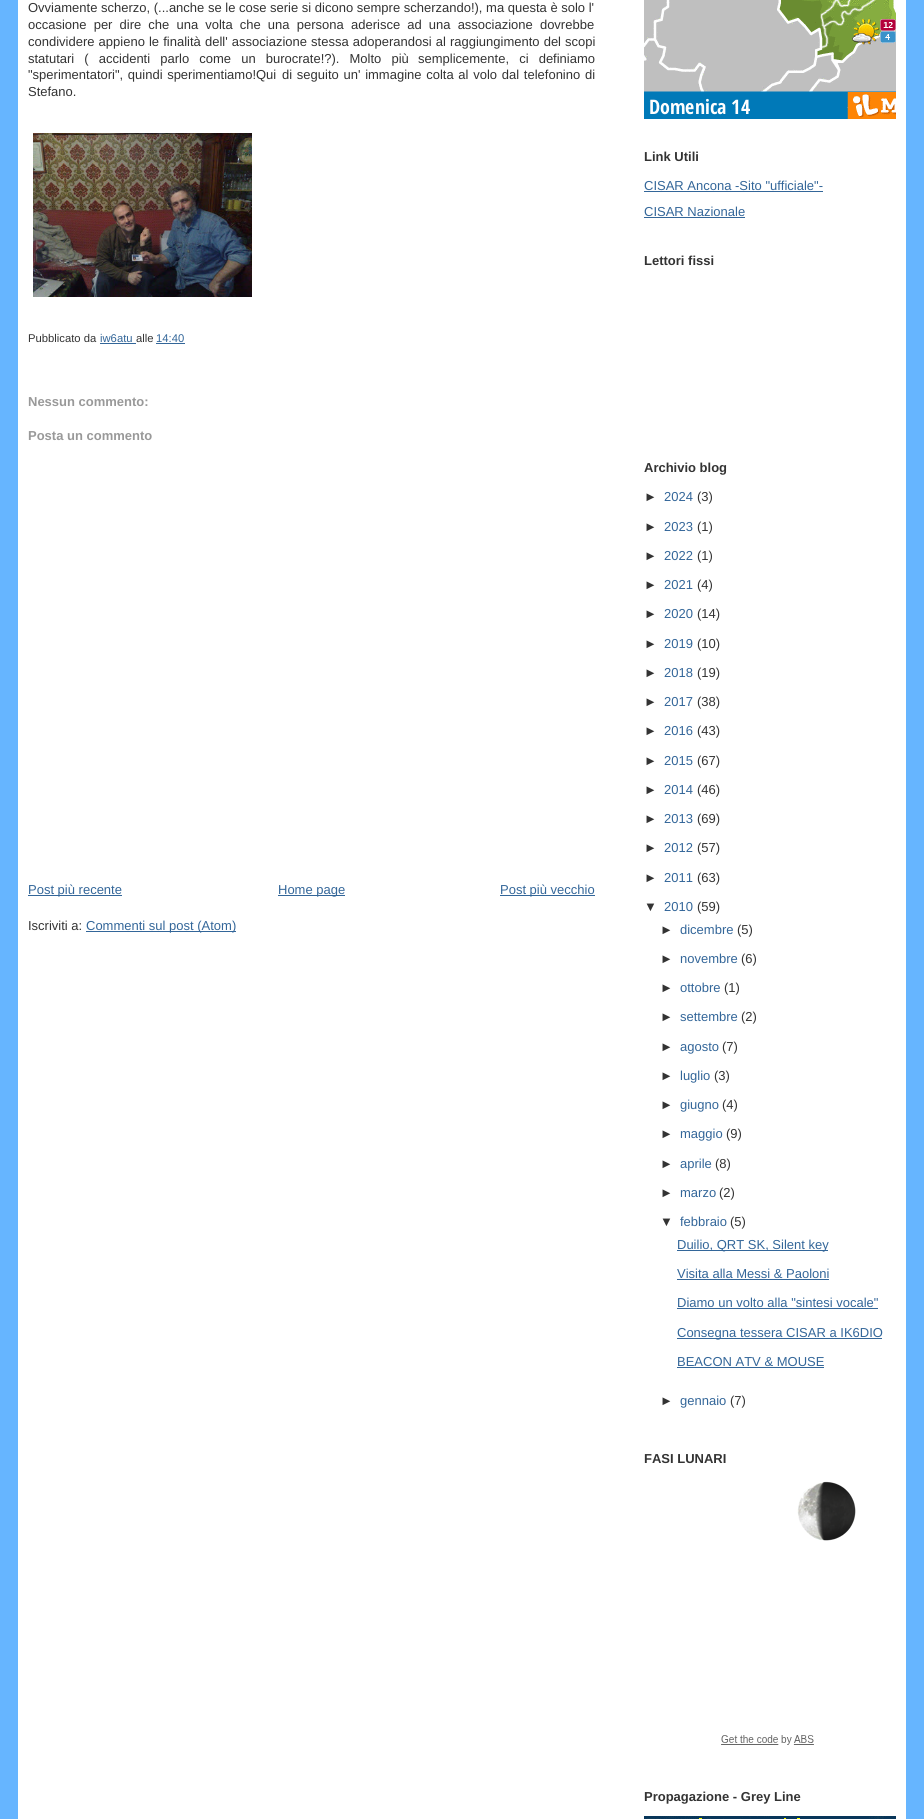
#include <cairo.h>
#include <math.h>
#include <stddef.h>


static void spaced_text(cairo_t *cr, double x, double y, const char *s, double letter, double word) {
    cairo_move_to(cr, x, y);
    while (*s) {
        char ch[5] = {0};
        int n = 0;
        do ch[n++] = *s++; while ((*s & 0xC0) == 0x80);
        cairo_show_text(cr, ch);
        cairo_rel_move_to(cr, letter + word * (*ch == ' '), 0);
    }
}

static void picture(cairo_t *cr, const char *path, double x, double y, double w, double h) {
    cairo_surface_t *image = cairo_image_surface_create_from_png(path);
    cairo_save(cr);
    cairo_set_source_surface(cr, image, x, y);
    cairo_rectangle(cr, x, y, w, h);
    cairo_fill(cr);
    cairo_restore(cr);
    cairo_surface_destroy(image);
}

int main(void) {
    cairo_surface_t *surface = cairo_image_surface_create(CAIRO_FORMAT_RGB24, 924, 1819);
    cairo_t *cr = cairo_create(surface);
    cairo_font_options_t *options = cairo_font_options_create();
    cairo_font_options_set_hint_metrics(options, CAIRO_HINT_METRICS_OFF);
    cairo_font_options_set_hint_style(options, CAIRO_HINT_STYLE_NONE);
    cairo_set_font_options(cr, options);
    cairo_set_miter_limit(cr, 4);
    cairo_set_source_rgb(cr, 0.4, 0.71, 1);
    cairo_paint(cr);
    cairo_set_source_rgb(cr, 1, 1, 1);
    cairo_rectangle(cr, 18, 0, 888, 1819);
    cairo_fill(cr);
    cairo_select_font_face(cr, "Liberation Sans", CAIRO_FONT_SLANT_NORMAL, CAIRO_FONT_WEIGHT_NORMAL);
    cairo_set_font_size(cr, 13);
    cairo_set_source_rgb(cr, 0.2, 0.2, 0.2);
    cairo_move_to(cr, 28, 12);
    cairo_show_text(cr, "Ovviamente scherzo, (...anche se le cose serie si dicono sempre scherzando!), ma questa è solo l'");
    spaced_text(cr, 28, 29, "occasione per dire che una volta che una persona", 0, 3.5);
    spaced_text(cr, 351, 29, "aderisce ad una associazione dovrebbe", 0, 3.5);
    spaced_text(cr, 28, 46, "condividere appieno le finalità", 0, 0.5);
    spaced_text(cr, 205, 46, "dell' associazione stessa adoperandosi al raggiungimento del scopi", 0, 0.5);
    spaced_text(cr, 28, 63, "statutari ( accidenti parlo come un burocrate!?). Molto più", 0, 6.5);
    spaced_text(cr, 418, 63, "semplicemente, ci definiamo", 0, 6.5);
    spaced_text(cr, 28, 79, "\"sperimentatori\", quindi sperimentiamo!Qui", 0, 1);
    spaced_text(cr, 282, 79, "di seguito un' immagine colta al volo dal telefonino di", 0, 1.1);
    cairo_move_to(cr, 28, 96);
    cairo_show_text(cr, "Stefano.");
    picture(cr, "img1.png", 33, 133, 219, 164);
    cairo_set_font_size(cr, 11.25);
    cairo_move_to(cr, 28, 342);
    cairo_show_text(cr, "Pubblicato da");
    cairo_set_source_rgb(cr, 0.2, 0.4, 0.6);
    cairo_move_to(cr, 100, 342);
    cairo_show_text(cr, "iw6atu");
    cairo_rectangle(cr, 100, 343, 36, 1);
    cairo_fill(cr);
    cairo_set_source_rgb(cr, 0.2, 0.2, 0.2);
    cairo_move_to(cr, 136, 342);
    cairo_show_text(cr, "alle");
    cairo_set_source_rgb(cr, 0.2, 0.4, 0.6);
    cairo_move_to(cr, 156, 342);
    cairo_show_text(cr, "14:40");
    cairo_rectangle(cr, 156, 343, 29, 1);
    cairo_fill(cr);
    cairo_select_font_face(cr, "Liberation Sans", CAIRO_FONT_SLANT_NORMAL, CAIRO_FONT_WEIGHT_BOLD);
    cairo_set_font_size(cr, 13);
    cairo_set_source_rgb(cr, 0.6, 0.6, 0.6);
    cairo_move_to(cr, 28, 406);
    cairo_show_text(cr, "Nessun commento:");
    cairo_move_to(cr, 28, 440);
    cairo_show_text(cr, "Posta un commento");
    cairo_set_source_rgb(cr, 0.2, 0.4, 0.6);
    cairo_rectangle(cr, 28, 895, 94, 1);
    cairo_fill(cr);
    cairo_select_font_face(cr, "Liberation Sans", CAIRO_FONT_SLANT_NORMAL, CAIRO_FONT_WEIGHT_NORMAL);
    cairo_move_to(cr, 28, 894);
    cairo_show_text(cr, "Post più recente");
    cairo_rectangle(cr, 278, 895, 67, 1);
    cairo_fill(cr);
    cairo_move_to(cr, 278, 894);
    cairo_show_text(cr, "Home page");
    cairo_rectangle(cr, 500, 895, 95, 1);
    cairo_fill(cr);
    cairo_move_to(cr, 500, 894);
    cairo_show_text(cr, "Post più vecchio");
    cairo_set_source_rgb(cr, 0.2, 0.2, 0.2);
    cairo_move_to(cr, 28, 930);
    cairo_show_text(cr, "Iscriviti a:");
    cairo_set_source_rgb(cr, 0.2, 0.4, 0.6);
    cairo_rectangle(cr, 86, 931, 150, 1);
    cairo_fill(cr);
    cairo_move_to(cr, 86, 930);
    cairo_show_text(cr, "Commenti sul post (Atom)");
    picture(cr, "img2.png", 644, 0, 252, 119);
    cairo_select_font_face(cr, "Liberation Sans", CAIRO_FONT_SLANT_NORMAL, CAIRO_FONT_WEIGHT_BOLD);
    cairo_set_source_rgb(cr, 0.2, 0.2, 0.2);
    cairo_move_to(cr, 644, 161);
    cairo_show_text(cr, "Link Utili");
    cairo_select_font_face(cr, "Liberation Sans", CAIRO_FONT_SLANT_NORMAL, CAIRO_FONT_WEIGHT_NORMAL);
    cairo_set_source_rgb(cr, 0.2, 0.4, 0.6);
    cairo_move_to(cr, 644, 190);
    cairo_show_text(cr, "CISAR Ancona -Sito \"ufficiale\"-");
    cairo_rectangle(cr, 644, 191, 179, 1);
    cairo_fill(cr);
    cairo_move_to(cr, 644, 216);
    cairo_show_text(cr, "CISAR Nazionale");
    cairo_rectangle(cr, 644, 217, 101, 1);
    cairo_fill(cr);
    cairo_select_font_face(cr, "Liberation Sans", CAIRO_FONT_SLANT_NORMAL, CAIRO_FONT_WEIGHT_BOLD);
    cairo_set_source_rgb(cr, 0.2, 0.2, 0.2);
    cairo_move_to(cr, 644, 265);
    cairo_show_text(cr, "Lettori fissi");
    cairo_move_to(cr, 644, 472);
    cairo_show_text(cr, "Archivio blog");
    cairo_select_font_face(cr, "Liberation Sans", CAIRO_FONT_SLANT_NORMAL, CAIRO_FONT_WEIGHT_NORMAL);
    cairo_move_to(cr, 644, 501);
    cairo_show_text(cr, "►");
    cairo_set_source_rgb(cr, 0.2, 0.4, 0.6);
    cairo_move_to(cr, 664, 501);
    cairo_show_text(cr, "2024");
    cairo_set_source_rgb(cr, 0.2, 0.2, 0.2);
    cairo_move_to(cr, 697, 501);
    cairo_show_text(cr, "(3)");
    cairo_move_to(cr, 644, 531);
    cairo_show_text(cr, "►");
    cairo_set_source_rgb(cr, 0.2, 0.4, 0.6);
    cairo_move_to(cr, 664, 531);
    cairo_show_text(cr, "2023");
    cairo_set_source_rgb(cr, 0.2, 0.2, 0.2);
    cairo_move_to(cr, 697, 531);
    cairo_show_text(cr, "(1)");
    cairo_move_to(cr, 644, 560);
    cairo_show_text(cr, "►");
    cairo_set_source_rgb(cr, 0.2, 0.4, 0.6);
    cairo_move_to(cr, 664, 560);
    cairo_show_text(cr, "2022");
    cairo_set_source_rgb(cr, 0.2, 0.2, 0.2);
    cairo_move_to(cr, 697, 560);
    cairo_show_text(cr, "(1)");
    cairo_move_to(cr, 644, 589);
    cairo_show_text(cr, "►");
    cairo_set_source_rgb(cr, 0.2, 0.4, 0.6);
    cairo_move_to(cr, 664, 589);
    cairo_show_text(cr, "2021");
    cairo_set_source_rgb(cr, 0.2, 0.2, 0.2);
    cairo_move_to(cr, 697, 589);
    cairo_show_text(cr, "(4)");
    cairo_move_to(cr, 644, 618);
    cairo_show_text(cr, "►");
    cairo_set_source_rgb(cr, 0.2, 0.4, 0.6);
    cairo_move_to(cr, 664, 618);
    cairo_show_text(cr, "2020");
    cairo_set_source_rgb(cr, 0.2, 0.2, 0.2);
    cairo_move_to(cr, 697, 618);
    cairo_show_text(cr, "(14)");
    cairo_move_to(cr, 644, 648);
    cairo_show_text(cr, "►");
    cairo_set_source_rgb(cr, 0.2, 0.4, 0.6);
    cairo_move_to(cr, 664, 648);
    cairo_show_text(cr, "2019");
    cairo_set_source_rgb(cr, 0.2, 0.2, 0.2);
    cairo_move_to(cr, 697, 648);
    cairo_show_text(cr, "(10)");
    cairo_move_to(cr, 644, 677);
    cairo_show_text(cr, "►");
    cairo_set_source_rgb(cr, 0.2, 0.4, 0.6);
    cairo_move_to(cr, 664, 677);
    cairo_show_text(cr, "2018");
    cairo_set_source_rgb(cr, 0.2, 0.2, 0.2);
    cairo_move_to(cr, 697, 677);
    cairo_show_text(cr, "(19)");
    cairo_move_to(cr, 644, 706);
    cairo_show_text(cr, "►");
    cairo_set_source_rgb(cr, 0.2, 0.4, 0.6);
    cairo_move_to(cr, 664, 706);
    cairo_show_text(cr, "2017");
    cairo_set_source_rgb(cr, 0.2, 0.2, 0.2);
    cairo_move_to(cr, 697, 706);
    cairo_show_text(cr, "(38)");
    cairo_move_to(cr, 644, 735);
    cairo_show_text(cr, "►");
    cairo_set_source_rgb(cr, 0.2, 0.4, 0.6);
    cairo_move_to(cr, 664, 735);
    cairo_show_text(cr, "2016");
    cairo_set_source_rgb(cr, 0.2, 0.2, 0.2);
    cairo_move_to(cr, 697, 735);
    cairo_show_text(cr, "(43)");
    cairo_move_to(cr, 644, 765);
    cairo_show_text(cr, "►");
    cairo_set_source_rgb(cr, 0.2, 0.4, 0.6);
    cairo_move_to(cr, 664, 765);
    cairo_show_text(cr, "2015");
    cairo_set_source_rgb(cr, 0.2, 0.2, 0.2);
    cairo_move_to(cr, 697, 765);
    cairo_show_text(cr, "(67)");
    cairo_move_to(cr, 644, 794);
    cairo_show_text(cr, "►");
    cairo_set_source_rgb(cr, 0.2, 0.4, 0.6);
    cairo_move_to(cr, 664, 794);
    cairo_show_text(cr, "2014");
    cairo_set_source_rgb(cr, 0.2, 0.2, 0.2);
    cairo_move_to(cr, 697, 794);
    cairo_show_text(cr, "(46)");
    cairo_move_to(cr, 644, 823);
    cairo_show_text(cr, "►");
    cairo_set_source_rgb(cr, 0.2, 0.4, 0.6);
    cairo_move_to(cr, 664, 823);
    cairo_show_text(cr, "2013");
    cairo_set_source_rgb(cr, 0.2, 0.2, 0.2);
    cairo_move_to(cr, 697, 823);
    cairo_show_text(cr, "(69)");
    cairo_move_to(cr, 644, 852);
    cairo_show_text(cr, "►");
    cairo_set_source_rgb(cr, 0.2, 0.4, 0.6);
    cairo_move_to(cr, 664, 852);
    cairo_show_text(cr, "2012");
    cairo_set_source_rgb(cr, 0.2, 0.2, 0.2);
    cairo_move_to(cr, 697, 852);
    cairo_show_text(cr, "(57)");
    cairo_move_to(cr, 644, 882);
    cairo_show_text(cr, "►");
    cairo_set_source_rgb(cr, 0.2, 0.4, 0.6);
    cairo_move_to(cr, 664, 882);
    cairo_show_text(cr, "2011");
    cairo_set_source_rgb(cr, 0.2, 0.2, 0.2);
    cairo_move_to(cr, 697, 882);
    cairo_show_text(cr, "(63)");
    cairo_move_to(cr, 644, 911);
    cairo_show_text(cr, "▼");
    cairo_set_source_rgb(cr, 0.2, 0.4, 0.6);
    cairo_move_to(cr, 664, 911);
    cairo_show_text(cr, "2010");
    cairo_set_source_rgb(cr, 0.2, 0.2, 0.2);
    cairo_move_to(cr, 697, 911);
    cairo_show_text(cr, "(59)");
    cairo_move_to(cr, 660, 934);
    cairo_show_text(cr, "►");
    cairo_set_source_rgb(cr, 0.2, 0.4, 0.6);
    cairo_move_to(cr, 680, 934);
    cairo_show_text(cr, "dicembre");
    cairo_set_source_rgb(cr, 0.2, 0.2, 0.2);
    cairo_move_to(cr, 737, 934);
    cairo_show_text(cr, "(5)");
    cairo_move_to(cr, 660, 963);
    cairo_show_text(cr, "►");
    cairo_set_source_rgb(cr, 0.2, 0.4, 0.6);
    cairo_move_to(cr, 680, 963);
    cairo_show_text(cr, "novembre");
    cairo_set_source_rgb(cr, 0.2, 0.2, 0.2);
    cairo_move_to(cr, 741, 963);
    cairo_show_text(cr, "(6)");
    cairo_move_to(cr, 660, 992);
    cairo_show_text(cr, "►");
    cairo_set_source_rgb(cr, 0.2, 0.4, 0.6);
    cairo_move_to(cr, 680, 992);
    cairo_show_text(cr, "ottobre");
    cairo_set_source_rgb(cr, 0.2, 0.2, 0.2);
    cairo_move_to(cr, 724, 992);
    cairo_show_text(cr, "(1)");
    cairo_move_to(cr, 660, 1021);
    cairo_show_text(cr, "►");
    cairo_set_source_rgb(cr, 0.2, 0.4, 0.6);
    cairo_move_to(cr, 680, 1021);
    cairo_show_text(cr, "settembre");
    cairo_set_source_rgb(cr, 0.2, 0.2, 0.2);
    cairo_move_to(cr, 741, 1021);
    cairo_show_text(cr, "(2)");
    cairo_move_to(cr, 660, 1051);
    cairo_show_text(cr, "►");
    cairo_set_source_rgb(cr, 0.2, 0.4, 0.6);
    cairo_move_to(cr, 680, 1051);
    cairo_show_text(cr, "agosto");
    cairo_set_source_rgb(cr, 0.2, 0.2, 0.2);
    cairo_move_to(cr, 722, 1051);
    cairo_show_text(cr, "(7)");
    cairo_move_to(cr, 660, 1080);
    cairo_show_text(cr, "►");
    cairo_set_source_rgb(cr, 0.2, 0.4, 0.6);
    cairo_move_to(cr, 680, 1080);
    cairo_show_text(cr, "luglio");
    cairo_set_source_rgb(cr, 0.2, 0.2, 0.2);
    cairo_move_to(cr, 714, 1080);
    cairo_show_text(cr, "(3)");
    cairo_move_to(cr, 660, 1109);
    cairo_show_text(cr, "►");
    cairo_set_source_rgb(cr, 0.2, 0.4, 0.6);
    cairo_move_to(cr, 680, 1109);
    cairo_show_text(cr, "giugno");
    cairo_set_source_rgb(cr, 0.2, 0.2, 0.2);
    cairo_move_to(cr, 722, 1109);
    cairo_show_text(cr, "(4)");
    cairo_move_to(cr, 660, 1138);
    cairo_show_text(cr, "►");
    cairo_set_source_rgb(cr, 0.2, 0.4, 0.6);
    cairo_move_to(cr, 680, 1138);
    cairo_show_text(cr, "maggio");
    cairo_set_source_rgb(cr, 0.2, 0.2, 0.2);
    cairo_move_to(cr, 726, 1138);
    cairo_show_text(cr, "(9)");
    cairo_move_to(cr, 660, 1168);
    cairo_show_text(cr, "►");
    cairo_set_source_rgb(cr, 0.2, 0.4, 0.6);
    cairo_move_to(cr, 680, 1168);
    cairo_show_text(cr, "aprile");
    cairo_set_source_rgb(cr, 0.2, 0.2, 0.2);
    cairo_move_to(cr, 715, 1168);
    cairo_show_text(cr, "(8)");
    cairo_move_to(cr, 660, 1197);
    cairo_show_text(cr, "►");
    cairo_set_source_rgb(cr, 0.2, 0.4, 0.6);
    cairo_move_to(cr, 680, 1197);
    cairo_show_text(cr, "marzo");
    cairo_set_source_rgb(cr, 0.2, 0.2, 0.2);
    cairo_move_to(cr, 719, 1197);
    cairo_show_text(cr, "(2)");
    cairo_move_to(cr, 660, 1226);
    cairo_show_text(cr, "▼");
    cairo_set_source_rgb(cr, 0.2, 0.4, 0.6);
    cairo_move_to(cr, 680, 1226);
    cairo_show_text(cr, "febbraio");
    cairo_set_source_rgb(cr, 0.2, 0.2, 0.2);
    cairo_move_to(cr, 730, 1226);
    cairo_show_text(cr, "(5)");
    cairo_set_source_rgb(cr, 0.2, 0.4, 0.6);
    cairo_rectangle(cr, 677, 1250, 151, 1);
    cairo_fill(cr);
    cairo_move_to(cr, 677, 1249);
    cairo_show_text(cr, "Duilio, QRT SK, Silent key");
    cairo_move_to(cr, 677, 1278);
    cairo_show_text(cr, "Visita alla Messi & Paoloni");
    cairo_rectangle(cr, 677, 1279, 152, 1);
    cairo_fill(cr);
    cairo_move_to(cr, 677, 1307);
    cairo_show_text(cr, "Diamo un volto alla \"sintesi vocale\"");
    cairo_rectangle(cr, 677, 1308, 201, 1);
    cairo_fill(cr);
    cairo_rectangle(cr, 677, 1338, 205, 1);
    cairo_fill(cr);
    cairo_move_to(cr, 677, 1337);
    cairo_show_text(cr, "Consegna tessera CISAR a IK6DIO");
    cairo_move_to(cr, 677, 1366);
    cairo_show_text(cr, "BEACON ATV & MOUSE");
    cairo_rectangle(cr, 677, 1367, 147, 1);
    cairo_fill(cr);
    cairo_set_source_rgb(cr, 0.2, 0.2, 0.2);
    cairo_move_to(cr, 660, 1405);
    cairo_show_text(cr, "►");
    cairo_set_source_rgb(cr, 0.2, 0.4, 0.6);
    cairo_move_to(cr, 680, 1405);
    cairo_show_text(cr, "gennaio");
    cairo_set_source_rgb(cr, 0.2, 0.2, 0.2);
    cairo_move_to(cr, 730, 1405);
    cairo_show_text(cr, "(7)");
    cairo_select_font_face(cr, "Liberation Sans", CAIRO_FONT_SLANT_NORMAL, CAIRO_FONT_WEIGHT_BOLD);
    cairo_move_to(cr, 644, 1463);
    cairo_show_text(cr, "FASI LUNARI");
    picture(cr, "img3.png", 721, 1481, 135, 264);
    cairo_move_to(cr, 644, 1801);
    cairo_show_text(cr, "Propagazione - Grey Line");
    picture(cr, "img4.png", 644, 1816, 252, 3);
    cairo_surface_write_to_png(surface, "page.png");
    cairo_font_options_destroy(options);
    cairo_destroy(cr);
    cairo_surface_destroy(surface);
    return 0;
}
